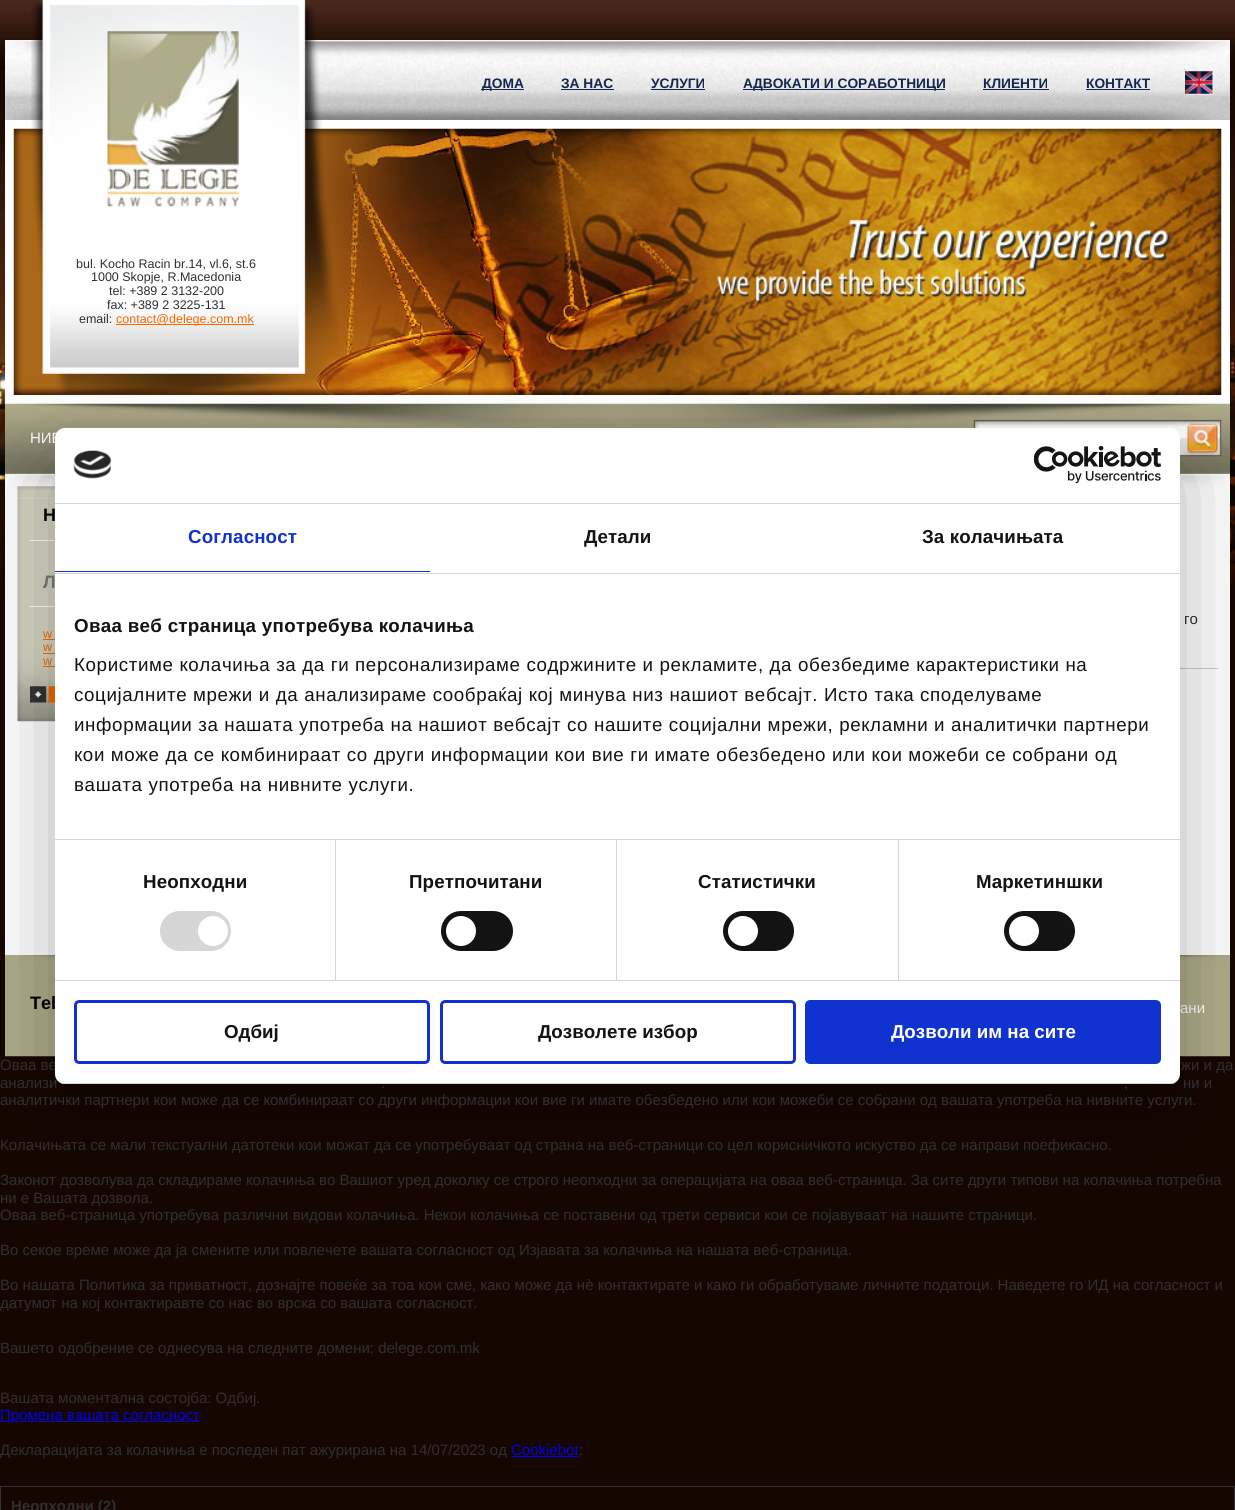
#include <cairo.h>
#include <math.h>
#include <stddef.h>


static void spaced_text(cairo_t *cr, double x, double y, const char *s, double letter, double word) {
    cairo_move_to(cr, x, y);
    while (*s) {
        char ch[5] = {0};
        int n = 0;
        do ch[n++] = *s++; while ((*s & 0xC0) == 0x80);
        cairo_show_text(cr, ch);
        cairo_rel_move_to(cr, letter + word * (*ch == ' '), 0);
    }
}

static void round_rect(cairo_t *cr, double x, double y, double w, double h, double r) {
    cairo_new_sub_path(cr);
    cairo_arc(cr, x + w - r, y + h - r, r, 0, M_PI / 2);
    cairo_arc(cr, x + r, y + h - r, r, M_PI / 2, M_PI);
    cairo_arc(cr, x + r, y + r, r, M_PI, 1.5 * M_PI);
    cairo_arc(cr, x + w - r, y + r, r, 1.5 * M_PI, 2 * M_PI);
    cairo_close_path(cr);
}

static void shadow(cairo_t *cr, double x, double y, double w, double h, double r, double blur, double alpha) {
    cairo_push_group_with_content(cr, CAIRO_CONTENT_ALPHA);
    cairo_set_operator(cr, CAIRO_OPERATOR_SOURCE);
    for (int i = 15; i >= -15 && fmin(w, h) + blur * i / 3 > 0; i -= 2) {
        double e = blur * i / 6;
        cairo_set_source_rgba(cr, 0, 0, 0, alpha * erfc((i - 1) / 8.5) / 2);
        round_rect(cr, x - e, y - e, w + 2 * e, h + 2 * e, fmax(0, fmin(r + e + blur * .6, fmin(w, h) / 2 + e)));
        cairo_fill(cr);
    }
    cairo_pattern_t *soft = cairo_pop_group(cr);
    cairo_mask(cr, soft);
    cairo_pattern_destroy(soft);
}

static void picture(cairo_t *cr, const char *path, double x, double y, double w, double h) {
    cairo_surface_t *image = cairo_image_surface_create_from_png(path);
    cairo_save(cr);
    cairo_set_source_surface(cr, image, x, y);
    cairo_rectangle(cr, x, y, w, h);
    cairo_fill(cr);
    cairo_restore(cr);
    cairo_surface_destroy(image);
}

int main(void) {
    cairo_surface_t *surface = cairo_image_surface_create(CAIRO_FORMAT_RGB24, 1235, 1510);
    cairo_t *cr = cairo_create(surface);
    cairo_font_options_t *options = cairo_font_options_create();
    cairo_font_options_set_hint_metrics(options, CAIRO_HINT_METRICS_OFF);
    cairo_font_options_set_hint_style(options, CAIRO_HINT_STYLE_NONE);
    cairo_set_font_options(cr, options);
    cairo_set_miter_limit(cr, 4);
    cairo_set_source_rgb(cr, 0.086, 0.027, 0);
    cairo_paint(cr);
    picture(cr, "img1.png", 0, 0, 1235, 600);
    picture(cr, "img2.png", 5, 40, 1225, 80);
    cairo_set_source_rgb(cr, 0.082, 0.157, 0.306);
    cairo_rectangle(cr, 481, 89, 43, 1);
    cairo_fill(cr);
    cairo_select_font_face(cr, "Liberation Sans", CAIRO_FONT_SLANT_NORMAL, CAIRO_FONT_WEIGHT_BOLD);
    cairo_set_font_size(cr, 13.75);
    cairo_move_to(cr, 482, 88);
    cairo_show_text(cr, "ДОМА");
    cairo_move_to(cr, 561, 88);
    cairo_show_text(cr, "ЗА НАС");
    cairo_rectangle(cr, 561, 89, 53, 1);
    cairo_fill(cr);
    cairo_move_to(cr, 651, 88);
    cairo_show_text(cr, "УСЛУГИ");
    cairo_rectangle(cr, 651, 89, 54, 1);
    cairo_fill(cr);
    cairo_rectangle(cr, 743, 89, 202, 1);
    cairo_fill(cr);
    cairo_move_to(cr, 743, 88);
    cairo_show_text(cr, "АДВОКАТИ И СОРАБОТНИЦИ");
    cairo_move_to(cr, 983, 88);
    cairo_show_text(cr, "КЛИЕНТИ");
    cairo_rectangle(cr, 983, 89, 66, 1);
    cairo_fill(cr);
    cairo_move_to(cr, 1086, 88);
    cairo_show_text(cr, "КОНТАКТ");
    cairo_rectangle(cr, 1086, 89, 64, 1);
    cairo_fill(cr);
    picture(cr, "img3.png", 1185, 71, 29, 24);
    cairo_set_source_rgb(cr, 1, 1, 1);
    cairo_rectangle(cr, 5, 120, 1225, 284);
    cairo_fill(cr);
    picture(cr, "img4.png", 13, 128, 1209, 267);
    picture(cr, "img5.png", 31, 0, 308, 394);
    picture(cr, "img6.png", 107, 31, 132, 176);
    cairo_select_font_face(cr, "Liberation Sans", CAIRO_FONT_SLANT_NORMAL, CAIRO_FONT_WEIGHT_NORMAL);
    cairo_set_font_size(cr, 12.5);
    cairo_set_source_rgb(cr, 0.184, 0.184, 0.184);
    cairo_move_to(cr, 76, 268);
    cairo_show_text(cr, "bul. Kocho Racin br.14, vl.6, st.6");
    cairo_move_to(cr, 91, 281);
    cairo_show_text(cr, "1000 Skopje, R.Macedonia");
    cairo_move_to(cr, 109, 295);
    cairo_show_text(cr, "tel: +389 2 3132-200");
    cairo_move_to(cr, 107, 309);
    cairo_show_text(cr, "fax: +389 2 3225-131");
    cairo_move_to(cr, 79, 323);
    cairo_show_text(cr, "email:");
    cairo_set_source_rgb(cr, 0.965, 0.412, 0);
    cairo_rectangle(cr, 116, 324, 138, 1);
    cairo_fill(cr);
    cairo_move_to(cr, 116, 323);
    cairo_show_text(cr, "contact@delege.com.mk");
    picture(cr, "img7.png", 5, 403, 1225, 71);
    cairo_set_font_size(cr, 15);
    cairo_set_source_rgb(cr, 1, 1, 1);
    cairo_move_to(cr, 30, 443);
    cairo_show_text(cr, "НИЕ");
    picture(cr, "img8.png", 973, 420, 249, 37);
    cairo_rectangle(cr, 5, 489, 1225, 466);
    cairo_fill(cr);
    picture(cr, "img9.png", 5, 473, 1225, 16);
    picture(cr, "img10.png", 17, 486, 38, 13);
    picture(cr, "img11.png", 17, 498, 38, 224);
    cairo_rectangle(cr, 30, 540, 25, 1);
    cairo_fill(cr);
    cairo_select_font_face(cr, "Liberation Sans", CAIRO_FONT_SLANT_NORMAL, CAIRO_FONT_WEIGHT_BOLD);
    cairo_set_font_size(cr, 18);
    cairo_set_source_rgb(cr, 0, 0, 0);
    cairo_move_to(cr, 43, 521);
    cairo_show_text(cr, "Н");
    cairo_set_source_rgb(cr, 1, 1, 1);
    cairo_rectangle(cr, 30, 606, 25, 1);
    cairo_fill(cr);
    cairo_set_source_rgb(cr, 0.482, 0.482, 0.482);
    cairo_move_to(cr, 43, 588);
    cairo_show_text(cr, "Л");
    cairo_select_font_face(cr, "Liberation Sans", CAIRO_FONT_SLANT_NORMAL, CAIRO_FONT_WEIGHT_NORMAL);
    cairo_set_font_size(cr, 12.5);
    cairo_set_source_rgb(cr, 0.965, 0.412, 0);
    cairo_move_to(cr, 43, 638);
    cairo_show_text(cr, "w");
    cairo_rectangle(cr, 43, 639, 12, 1);
    cairo_fill(cr);
    cairo_move_to(cr, 43, 651);
    cairo_show_text(cr, "w");
    cairo_rectangle(cr, 43, 653, 12, 1);
    cairo_fill(cr);
    cairo_move_to(cr, 43, 665);
    cairo_show_text(cr, "w");
    cairo_rectangle(cr, 43, 666, 12, 1);
    cairo_fill(cr);
    picture(cr, "img12.png", 30, 686, 25, 17);
    cairo_set_source_rgb(cr, 0.8, 0.8, 0.8);
    cairo_rectangle(cr, 1180, 668, 38, 1);
    cairo_fill(cr);
    cairo_set_font_size(cr, 15);
    cairo_set_source_rgb(cr, 0.184, 0.184, 0.184);
    cairo_move_to(cr, 1184, 624);
    cairo_show_text(cr, "го");
    picture(cr, "img13.png", 5, 955, 1225, 102);
    cairo_select_font_face(cr, "Liberation Sans", CAIRO_FONT_SLANT_NORMAL, CAIRO_FONT_WEIGHT_BOLD);
    cairo_set_font_size(cr, 18);
    cairo_set_source_rgb(cr, 0, 0, 0);
    cairo_move_to(cr, 30, 1009);
    cairo_show_text(cr, "Tel");
    cairo_select_font_face(cr, "Liberation Sans", CAIRO_FONT_SLANT_NORMAL, CAIRO_FONT_WEIGHT_NORMAL);
    cairo_set_font_size(cr, 15);
    cairo_set_source_rgb(cr, 1, 1, 1);
    cairo_move_to(cr, 1180, 1013);
    cairo_show_text(cr, "ани");
    cairo_set_source_rgb(cr, 0, 0, 0);
    shadow(cr, 55, 468, 1125, 656, 10, 42.5, 0.3);
    cairo_set_source_rgb(cr, 0.184, 0.184, 0.184);
    cairo_move_to(cr, 0, 1070);
    cairo_show_text(cr, "Оваа ве");
    cairo_move_to(cr, 0, 1088);
    cairo_show_text(cr, "анализи");
    cairo_set_source_rgb(cr, 1, 1, 1);
    round_rect(cr, 55, 428, 1125, 656, 10);
    cairo_fill(cr);
    cairo_set_source_rgb(cr, 0.839, 0.839, 0.839);
    cairo_rectangle(cr, 55, 503, 1125, 1);
    cairo_fill(cr);
    picture(cr, "img14.png", 73, 450, 39, 29);
    picture(cr, "img15.png", 1034, 446, 127, 38);
    cairo_rectangle(cr, 55, 573, 1125, 1);
    cairo_fill(cr);
    cairo_set_source_rgb(cr, 0.063, 0.196, 0.812);
    cairo_rectangle(cr, 55, 571, 375, 1);
    cairo_fill(cr);
    cairo_select_font_face(cr, "Liberation Sans", CAIRO_FONT_SLANT_NORMAL, CAIRO_FONT_WEIGHT_BOLD);
    cairo_set_font_size(cr, 18.75);
    spaced_text(cr, 188, 543, "Согласност", 0.1, 0);
    cairo_set_source_rgb(cr, 0.078, 0.078, 0.078);
    spaced_text(cr, 584, 543, "Детали", 0.1, 0);
    spaced_text(cr, 922, 543, "За колачињата", 0.1, 0);
    cairo_set_source_rgb(cr, 0.839, 0.839, 0.839);
    cairo_rectangle(cr, 55, 839, 1125, 1);
    cairo_fill(cr);
    cairo_set_source_rgb(cr, 0.078, 0.078, 0.078);
    spaced_text(cr, 74, 632, "Оваа веб страница употребува колачиња", 0.3, 0);
    cairo_select_font_face(cr, "Liberation Sans", CAIRO_FONT_SLANT_NORMAL, CAIRO_FONT_WEIGHT_NORMAL);
    spaced_text(cr, 74, 671, "Користиме колачиња за да ги персонализираме содржините и рекламите, да обезбедиме карактеристики на", 0.62, 0);
    spaced_text(cr, 74, 701, "социјалните мрежи и да анализираме сообраќај кој минува низ нашиот вебсајт. Исто така споделуваме", 0.62, 0);
    spaced_text(cr, 74, 731, "информации за нашата употреба на нашиот вебсајт со нашите социјални мрежи, рекламни и аналитички партнери", 0.62, 0);
    spaced_text(cr, 74, 761, "кои може да се комбинираат со други информации кои вие ги имате обезбедено или кои можеби се собрани од", 0.62, 0);
    spaced_text(cr, 74, 791, "вашата употреба на нивните услуги.", 0.62, 0);
    cairo_set_source_rgb(cr, 0.839, 0.839, 0.839);
    cairo_rectangle(cr, 55, 980, 1125, 1);
    cairo_fill(cr);
    cairo_rectangle(cr, 335, 840, 1, 140);
    cairo_fill(cr);
    cairo_select_font_face(cr, "Liberation Sans", CAIRO_FONT_SLANT_NORMAL, CAIRO_FONT_WEIGHT_BOLD);
    cairo_set_source_rgb(cr, 0.078, 0.078, 0.078);
    spaced_text(cr, 143, 888, "Неопходни", 0.1, 0);
    cairo_set_source_rgb(cr, 0.839, 0.839, 0.839);
    round_rect(cr, 160, 911, 71, 40, 20);
    cairo_fill(cr);
    cairo_set_source_rgb(cr, 1, 1, 1);
    cairo_arc(cr, 213, 931, 15, 0, 2 * M_PI);
    cairo_fill(cr);
    cairo_set_source_rgb(cr, 0.839, 0.839, 0.839);
    cairo_rectangle(cr, 616, 840, 1, 140);
    cairo_fill(cr);
    cairo_set_source_rgb(cr, 0.078, 0.078, 0.078);
    spaced_text(cr, 409, 888, "Претпочитани", 0.1, 0);
    round_rect(cr, 441, 911, 72, 40, 20);
    cairo_fill(cr);
    cairo_set_source_rgb(cr, 1, 1, 1);
    cairo_arc(cr, 461, 931, 15, 0, 2 * M_PI);
    cairo_fill(cr);
    cairo_set_source_rgb(cr, 0.839, 0.839, 0.839);
    cairo_rectangle(cr, 898, 840, 1, 140);
    cairo_fill(cr);
    cairo_set_source_rgb(cr, 0.078, 0.078, 0.078);
    spaced_text(cr, 698, 888, "Статистички", 0.1, 0);
    round_rect(cr, 723, 911, 71, 40, 20);
    cairo_fill(cr);
    cairo_set_source_rgb(cr, 1, 1, 1);
    cairo_arc(cr, 743, 931, 15, 0, 2 * M_PI);
    cairo_fill(cr);
    cairo_set_source_rgb(cr, 0.078, 0.078, 0.078);
    spaced_text(cr, 976, 888, "Маркетиншки", 0.1, 0);
    round_rect(cr, 1004, 911, 71, 40, 20);
    cairo_fill(cr);
    cairo_set_source_rgb(cr, 1, 1, 1);
    cairo_arc(cr, 1024, 931, 15, 0, 2 * M_PI);
    cairo_fill(cr);
    cairo_save(cr);
    round_rect(cr, 55, 428, 1125, 656, 10);
    cairo_clip(cr);
    cairo_set_source_rgb(cr, 0.839, 0.839, 0.839);
    cairo_rectangle(cr, 55, 1083, 1125, 1);
    cairo_fill(cr);
    cairo_restore(cr);
    round_rect(cr, 75.5, 1001.5, 353, 61, 3.5);
    cairo_set_source_rgb(cr, 0.063, 0.196, 0.812);
    cairo_set_line_width(cr, 3);
    cairo_stroke(cr);
    cairo_set_source_rgb(cr, 0.078, 0.078, 0.078);
    cairo_move_to(cr, 224, 1038);
    cairo_show_text(cr, "Одбиј");
    round_rect(cr, 441.5, 1001.5, 353, 61, 3.5);
    cairo_set_source_rgb(cr, 0.063, 0.196, 0.812);
    cairo_stroke(cr);
    cairo_set_source_rgb(cr, 0.078, 0.078, 0.078);
    cairo_move_to(cr, 538, 1038);
    cairo_show_text(cr, "Дозволете избор");
    cairo_set_source_rgb(cr, 0.063, 0.196, 0.812);
    round_rect(cr, 806.5, 1001.5, 353, 61, 3.5);
    cairo_fill_preserve(cr);
    cairo_stroke(cr);
    cairo_set_source_rgb(cr, 1, 1, 1);
    cairo_move_to(cr, 891, 1038);
    cairo_show_text(cr, "Дозволи им на сите");
    cairo_select_font_face(cr, "Liberation Sans", CAIRO_FONT_SLANT_NORMAL, CAIRO_FONT_WEIGHT_NORMAL);
    cairo_set_font_size(cr, 15);
    cairo_set_source_rgb(cr, 0.184, 0.184, 0.184);
    cairo_move_to(cr, 1181, 1070);
    cairo_show_text(cr, "жи и да");
    cairo_move_to(cr, 381, 1088);
    cairo_show_text(cr, ".");
    cairo_move_to(cr, 1124, 1088);
    cairo_show_text(cr, ",");
    cairo_move_to(cr, 1183, 1088);
    cairo_show_text(cr, "ни и");
    cairo_move_to(cr, 0, 1105);
    cairo_show_text(cr, "аналитички партнери кои може да се комбинираат со други информации кои вие ги имате обезбедено или кои можеби се собрани од вашата употреба на нивните услуги.");
    cairo_move_to(cr, 0, 1150);
    cairo_show_text(cr, "Колачињата се мали текстуални датотеки кои можат да се употребуваат од страна на веб-страници со цел корисничкото искуство да се направи поефикасно.");
    cairo_move_to(cr, 0, 1185);
    cairo_show_text(cr, "Законот дозволува да складираме колачиња во Вашиот уред доколку се строго неопходни за операцијата на оваа веб-страница. За сите други типови на колачиња потребна");
    cairo_move_to(cr, 0, 1203);
    cairo_show_text(cr, "ни е Вашата дозвола.");
    cairo_move_to(cr, 0, 1220);
    cairo_show_text(cr, "Оваа веб-страница употребува различни видови колачиња. Некои колачиња се поставени од трети сервиси кои се појавуваат на нашите страници.");
    cairo_move_to(cr, 0, 1255);
    cairo_show_text(cr, "Во секое време може да ја смените или повлечете вашата согласност од Изјавата за колачиња на нашата веб-страница.");
    cairo_move_to(cr, 0, 1290);
    cairo_show_text(cr, "Во нашата Политика за приватност, дознајте повеќе за тоа кои сме, како може да нѐ контактирате и како ги обработуваме личните податоци. Наведете го ИД на согласност и");
    cairo_move_to(cr, 0, 1308);
    cairo_show_text(cr, "датумот на кој контактиравте со нас во врска со вашата согласност.");
    cairo_move_to(cr, 0, 1353);
    cairo_show_text(cr, "Вашето одобрение се однесува на следните домени: delege.com.mk");
    cairo_move_to(cr, 0, 1403);
    cairo_show_text(cr, "Вашата моментална состојба: Одбиј.");
    cairo_set_source_rgb(cr, 0, 0, 0.933);
    cairo_rectangle(cr, 0, 1421, 200, 1);
    cairo_fill(cr);
    cairo_move_to(cr, 0, 1420);
    cairo_show_text(cr, "Промена вашата согласност");
    cairo_set_source_rgb(cr, 0.184, 0.184, 0.184);
    cairo_move_to(cr, 0, 1455);
    cairo_show_text(cr, "Декларацијата за колачиња е последен пат ажурирана на 14/07/2023 од");
    cairo_set_source_rgb(cr, 0, 0, 0.933);
    cairo_move_to(cr, 511, 1455);
    cairo_show_text(cr, "Cookiebot");
    cairo_rectangle(cr, 511, 1456, 68, 1);
    cairo_fill(cr);
    cairo_set_source_rgb(cr, 0.184, 0.184, 0.184);
    cairo_move_to(cr, 579, 1455);
    cairo_show_text(cr, ":");
    cairo_rectangle(cr, 0.5, 1486.5, 1234, 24);
    cairo_set_source_rgb(cr, 0.2, 0.2, 0.2);
    cairo_set_line_width(cr, 1);
    cairo_stroke(cr);
    cairo_select_font_face(cr, "Liberation Sans", CAIRO_FONT_SLANT_NORMAL, CAIRO_FONT_WEIGHT_BOLD);
    cairo_set_source_rgb(cr, 0.184, 0.184, 0.184);
    cairo_move_to(cr, 11, 1511);
    cairo_show_text(cr, "Неопходни (2)");
    cairo_surface_write_to_png(surface, "page.png");
    cairo_font_options_destroy(options);
    cairo_destroy(cr);
    cairo_surface_destroy(surface);
    return 0;
}
